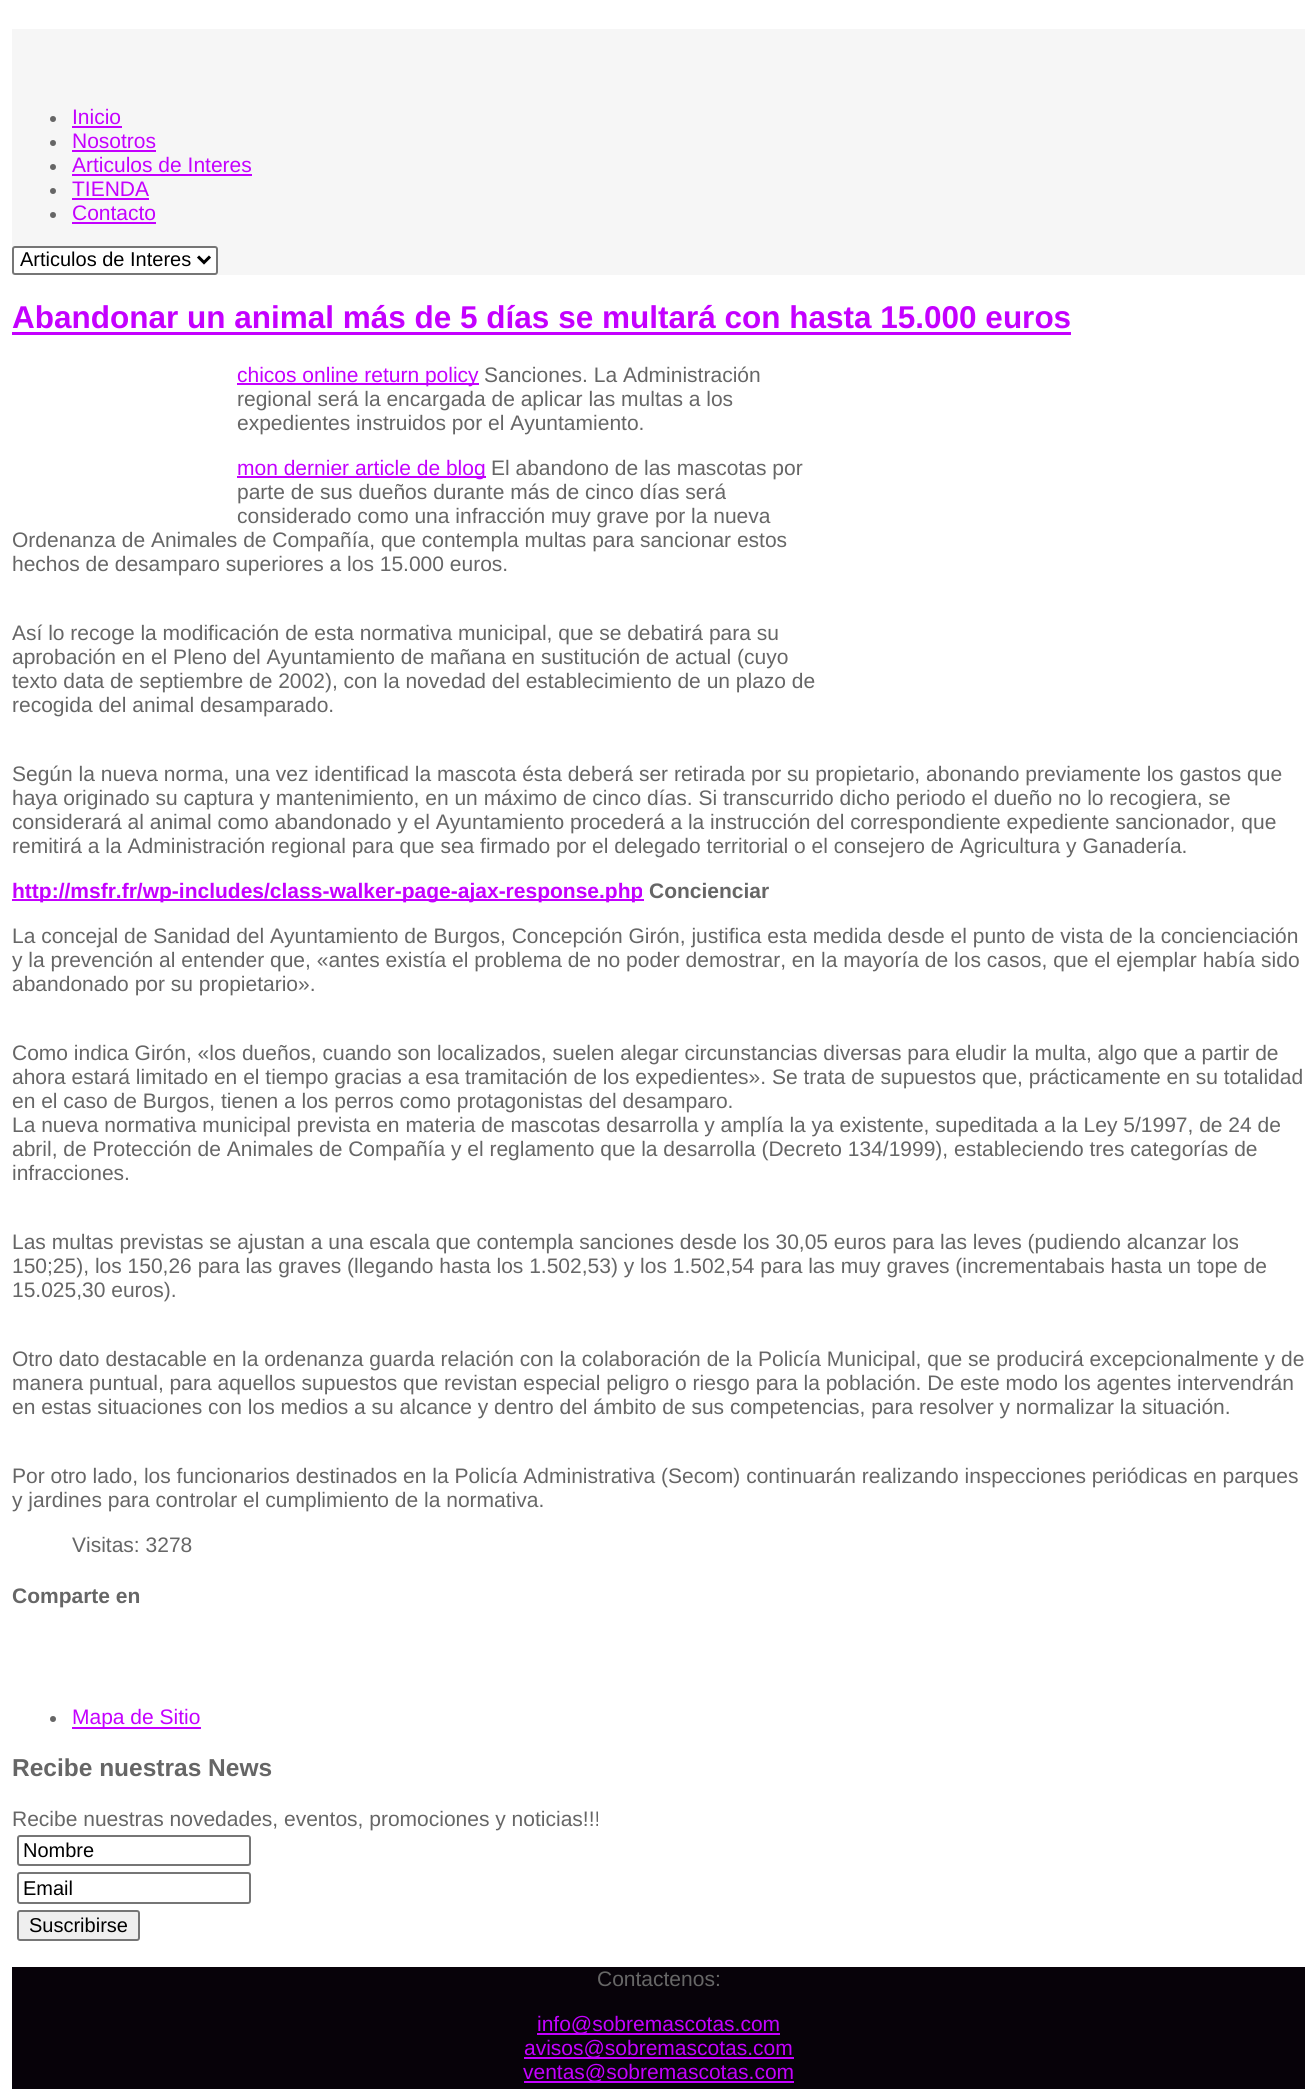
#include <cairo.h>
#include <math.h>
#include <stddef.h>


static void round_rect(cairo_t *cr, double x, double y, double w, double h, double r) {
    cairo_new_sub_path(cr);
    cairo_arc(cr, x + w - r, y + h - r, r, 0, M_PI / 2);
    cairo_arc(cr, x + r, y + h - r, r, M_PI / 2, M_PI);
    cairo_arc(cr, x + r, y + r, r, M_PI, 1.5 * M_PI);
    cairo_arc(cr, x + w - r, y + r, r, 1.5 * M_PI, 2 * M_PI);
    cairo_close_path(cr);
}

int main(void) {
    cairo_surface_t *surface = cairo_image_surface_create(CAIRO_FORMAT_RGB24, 1316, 2089);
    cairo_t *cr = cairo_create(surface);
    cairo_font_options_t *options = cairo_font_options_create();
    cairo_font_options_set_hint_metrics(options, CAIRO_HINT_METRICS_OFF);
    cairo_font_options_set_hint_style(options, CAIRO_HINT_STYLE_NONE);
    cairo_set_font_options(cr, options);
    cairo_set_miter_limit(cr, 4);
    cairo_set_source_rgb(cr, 1, 1, 1);
    cairo_paint(cr);
    cairo_set_source_rgb(cr, 0.961, 0.961, 0.961);
    cairo_rectangle(cr, 12, 29, 1293, 246);
    cairo_fill(cr);
    cairo_set_source_rgb(cr, 0.4, 0.4, 0.4);
    cairo_arc(cr, 53, 119, 3, 0, 2 * M_PI);
    cairo_fill(cr);
    cairo_select_font_face(cr, "Liberation Sans", CAIRO_FONT_SLANT_NORMAL, CAIRO_FONT_WEIGHT_NORMAL);
    cairo_set_font_size(cr, 21);
    cairo_set_source_rgb(cr, 0.769, 0, 1);
    cairo_move_to(cr, 72, 124);
    cairo_show_text(cr, "Inicio");
    cairo_rectangle(cr, 72, 126, 50, 2);
    cairo_fill(cr);
    cairo_set_source_rgb(cr, 0.4, 0.4, 0.4);
    cairo_arc(cr, 53, 143, 3, 0, 2 * M_PI);
    cairo_fill(cr);
    cairo_set_source_rgb(cr, 0.769, 0, 1);
    cairo_move_to(cr, 72, 148);
    cairo_show_text(cr, "Nosotros");
    cairo_rectangle(cr, 72, 150, 84, 2);
    cairo_fill(cr);
    cairo_set_source_rgb(cr, 0.4, 0.4, 0.4);
    cairo_arc(cr, 53, 167, 3, 0, 2 * M_PI);
    cairo_fill(cr);
    cairo_set_source_rgb(cr, 0.769, 0, 1);
    cairo_move_to(cr, 72, 172);
    cairo_show_text(cr, "Articulos de Interes");
    cairo_rectangle(cr, 72, 174, 180, 2);
    cairo_fill(cr);
    cairo_set_source_rgb(cr, 0.4, 0.4, 0.4);
    cairo_arc(cr, 53, 191, 3, 0, 2 * M_PI);
    cairo_fill(cr);
    cairo_set_source_rgb(cr, 0.769, 0, 1);
    cairo_move_to(cr, 72, 196);
    cairo_show_text(cr, "TIENDA");
    cairo_rectangle(cr, 72, 198, 77, 2);
    cairo_fill(cr);
    cairo_set_source_rgb(cr, 0.4, 0.4, 0.4);
    cairo_arc(cr, 53, 215, 3, 0, 2 * M_PI);
    cairo_fill(cr);
    cairo_set_source_rgb(cr, 0.769, 0, 1);
    cairo_move_to(cr, 72, 220);
    cairo_show_text(cr, "Contacto");
    cairo_rectangle(cr, 72, 222, 84, 2);
    cairo_fill(cr);
    cairo_set_source_rgb(cr, 1, 1, 1);
    round_rect(cr, 13, 247, 204, 27, 2);
    cairo_fill_preserve(cr);
    cairo_set_source_rgb(cr, 0.463, 0.463, 0.463);
    cairo_stroke(cr);
    cairo_new_path(cr);
    cairo_move_to(cr, 198, 256.5);
    cairo_line_to(cr, 204, 262.5);
    cairo_line_to(cr, 210, 256.5);
    cairo_set_source_rgb(cr, 0, 0, 0);
    cairo_set_line_width(cr, 3);
    cairo_stroke(cr);
    cairo_set_font_size(cr, 20);
    cairo_move_to(cr, 20, 266);
    cairo_show_text(cr, "Articulos de Interes");
    cairo_select_font_face(cr, "Liberation Sans", CAIRO_FONT_SLANT_NORMAL, CAIRO_FONT_WEIGHT_BOLD);
    cairo_set_font_size(cr, 31.5);
    cairo_set_source_rgb(cr, 0.769, 0, 1);
    cairo_move_to(cr, 12, 328);
    cairo_show_text(cr, "Abandonar un animal más de 5 días se multará con hasta 15.000 euros");
    cairo_rectangle(cr, 12, 332, 1059, 3);
    cairo_fill(cr);
    cairo_rectangle(cr, 237, 383, 242, 2);
    cairo_fill(cr);
    cairo_select_font_face(cr, "Liberation Sans", CAIRO_FONT_SLANT_NORMAL, CAIRO_FONT_WEIGHT_NORMAL);
    cairo_set_font_size(cr, 21);
    cairo_move_to(cr, 237, 382);
    cairo_show_text(cr, "chicos online return policy");
    cairo_set_source_rgb(cr, 0.4, 0.4, 0.4);
    cairo_move_to(cr, 484, 382);
    cairo_show_text(cr, "Sanciones. La Administración");
    cairo_move_to(cr, 237, 406);
    cairo_show_text(cr, "regional será la encargada de aplicar las multas a los");
    cairo_move_to(cr, 237, 430);
    cairo_show_text(cr, "expedientes instruidos por el Ayuntamiento.");
    cairo_set_source_rgb(cr, 0.769, 0, 1);
    cairo_rectangle(cr, 237, 476, 249, 2);
    cairo_fill(cr);
    cairo_move_to(cr, 237, 475);
    cairo_show_text(cr, "mon dernier article de blog");
    cairo_set_source_rgb(cr, 0.4, 0.4, 0.4);
    cairo_move_to(cr, 491, 475);
    cairo_show_text(cr, "El abandono de las mascotas por");
    cairo_move_to(cr, 237, 499);
    cairo_show_text(cr, "parte de sus dueños durante más de cinco días será");
    cairo_move_to(cr, 237, 523);
    cairo_show_text(cr, "considerado como una infracción muy grave por la nueva");
    cairo_move_to(cr, 12, 547);
    cairo_show_text(cr, "Ordenanza de Animales de Compañía, que contempla multas para sancionar estos");
    cairo_move_to(cr, 12, 571);
    cairo_show_text(cr, "hechos de desamparo superiores a los 15.000 euros.");
    cairo_move_to(cr, 12, 640);
    cairo_show_text(cr, "Así lo recoge la modificación de esta normativa municipal, que se debatirá para su");
    cairo_move_to(cr, 12, 664);
    cairo_show_text(cr, "aprobación en el Pleno del Ayuntamiento de mañana en sustitución de actual (cuyo");
    cairo_move_to(cr, 12, 688);
    cairo_show_text(cr, "texto data de septiembre de 2002), con la novedad del establecimiento de un plazo de");
    cairo_move_to(cr, 12, 712);
    cairo_show_text(cr, "recogida del animal desamparado.");
    cairo_move_to(cr, 12, 781);
    cairo_show_text(cr, "Según la nueva norma, una vez identificad la mascota ésta deberá ser retirada por su propietario, abonando previamente los gastos que");
    cairo_move_to(cr, 12, 805);
    cairo_show_text(cr, "haya originado su captura y mantenimiento, en un máximo de cinco días. Si transcurrido dicho periodo el dueño no lo recogiera, se");
    cairo_move_to(cr, 12, 829);
    cairo_show_text(cr, "considerará al animal como abandonado y el Ayuntamiento procederá a la instrucción del correspondiente expediente sancionador, que");
    cairo_move_to(cr, 12, 853);
    cairo_show_text(cr, "remitirá a la Administración regional para que sea firmado por el delegado territorial o el consejero de Agricultura y Ganadería.");
    cairo_set_source_rgb(cr, 0.769, 0, 1);
    cairo_rectangle(cr, 12, 899, 632, 2);
    cairo_fill(cr);
    cairo_select_font_face(cr, "Liberation Sans", CAIRO_FONT_SLANT_NORMAL, CAIRO_FONT_WEIGHT_BOLD);
    cairo_move_to(cr, 12, 898);
    cairo_show_text(cr, "http://msfr.fr/wp-includes/class-walker-page-ajax-response.php");
    cairo_set_source_rgb(cr, 0.4, 0.4, 0.4);
    cairo_move_to(cr, 649, 898);
    cairo_show_text(cr, "Concienciar");
    cairo_select_font_face(cr, "Liberation Sans", CAIRO_FONT_SLANT_NORMAL, CAIRO_FONT_WEIGHT_NORMAL);
    cairo_move_to(cr, 12, 943);
    cairo_show_text(cr, "La concejal de Sanidad del Ayuntamiento de Burgos, Concepción Girón, justifica esta medida desde el punto de vista de la concienciación");
    cairo_move_to(cr, 12, 967);
    cairo_show_text(cr, "y la prevención al entender que, «antes existía el problema de no poder demostrar, en la mayoría de los casos, que el ejemplar había sido");
    cairo_move_to(cr, 12, 991);
    cairo_show_text(cr, "abandonado por su propietario».");
    cairo_move_to(cr, 12, 1060);
    cairo_show_text(cr, "Como indica Girón, «los dueños, cuando son localizados, suelen alegar circunstancias diversas para eludir la multa, algo que a partir de");
    cairo_move_to(cr, 12, 1084);
    cairo_show_text(cr, "ahora estará limitado en el tiempo gracias a esa tramitación de los expedientes». Se trata de supuestos que, prácticamente en su totalidad");
    cairo_move_to(cr, 12, 1108);
    cairo_show_text(cr, "en el caso de Burgos, tienen a los perros como protagonistas del desamparo.");
    cairo_move_to(cr, 12, 1132);
    cairo_show_text(cr, "La nueva normativa municipal prevista en materia de mascotas desarrolla y amplía la ya existente, supeditada a la Ley 5/1997, de 24 de");
    cairo_move_to(cr, 12, 1156);
    cairo_show_text(cr, "abril, de Protección de Animales de Compañía y el reglamento que la desarrolla (Decreto 134/1999), estableciendo tres categorías de");
    cairo_move_to(cr, 12, 1180);
    cairo_show_text(cr, "infracciones.");
    cairo_move_to(cr, 12, 1249);
    cairo_show_text(cr, "Las multas previstas se ajustan a una escala que contempla sanciones desde los 30,05 euros para las leves (pudiendo alcanzar los");
    cairo_move_to(cr, 12, 1273);
    cairo_show_text(cr, "150;25), los 150,26 para las graves (llegando hasta los 1.502,53) y los 1.502,54 para las muy graves (incrementabais hasta un tope de");
    cairo_move_to(cr, 12, 1297);
    cairo_show_text(cr, "15.025,30 euros).");
    cairo_move_to(cr, 12, 1366);
    cairo_show_text(cr, "Otro dato destacable en la ordenanza guarda relación con la colaboración de la Policía Municipal, que se producirá excepcionalmente y de");
    cairo_move_to(cr, 12, 1390);
    cairo_show_text(cr, "manera puntual, para aquellos supuestos que revistan especial peligro o riesgo para la población. De este modo los agentes intervendrán");
    cairo_move_to(cr, 12, 1414);
    cairo_show_text(cr, "en estas situaciones con los medios a su alcance y dentro del ámbito de sus competencias, para resolver y normalizar la situación.");
    cairo_move_to(cr, 12, 1483);
    cairo_show_text(cr, "Por otro lado, los funcionarios destinados en la Policía Administrativa (Secom) continuarán realizando inspecciones periódicas en parques");
    cairo_move_to(cr, 12, 1507);
    cairo_show_text(cr, "y jardines para controlar el cumplimiento de la normativa.");
    cairo_move_to(cr, 72, 1552);
    cairo_show_text(cr, "Visitas: 3278");
    cairo_select_font_face(cr, "Liberation Sans", CAIRO_FONT_SLANT_NORMAL, CAIRO_FONT_WEIGHT_BOLD);
    cairo_move_to(cr, 12, 1603);
    cairo_show_text(cr, "Comparte en");
    cairo_new_path(cr);
    cairo_arc(cr, 53, 1719, 3, 0, 2 * M_PI);
    cairo_fill(cr);
    cairo_set_source_rgb(cr, 0.769, 0, 1);
    cairo_rectangle(cr, 72, 1727, 129, 2);
    cairo_fill(cr);
    cairo_select_font_face(cr, "Liberation Sans", CAIRO_FONT_SLANT_NORMAL, CAIRO_FONT_WEIGHT_NORMAL);
    cairo_move_to(cr, 72, 1724);
    cairo_show_text(cr, "Mapa de Sitio");
    cairo_select_font_face(cr, "Liberation Sans", CAIRO_FONT_SLANT_NORMAL, CAIRO_FONT_WEIGHT_BOLD);
    cairo_set_font_size(cr, 24.5);
    cairo_set_source_rgb(cr, 0.4, 0.4, 0.4);
    cairo_move_to(cr, 12, 1776);
    cairo_show_text(cr, "Recibe nuestras News");
    cairo_select_font_face(cr, "Liberation Sans", CAIRO_FONT_SLANT_NORMAL, CAIRO_FONT_WEIGHT_NORMAL);
    cairo_set_font_size(cr, 21);
    cairo_move_to(cr, 12, 1826);
    cairo_show_text(cr, "Recibe nuestras novedades, eventos, promociones y noticias!!!");
    round_rect(cr, 18, 1836, 232, 29, 2);
    cairo_set_source_rgb(cr, 0.463, 0.463, 0.463);
    cairo_set_line_width(cr, 2);
    cairo_stroke(cr);
    cairo_set_font_size(cr, 20);
    cairo_set_source_rgb(cr, 0, 0, 0);
    cairo_move_to(cr, 23, 1857);
    cairo_show_text(cr, "Nombre");
    round_rect(cr, 18, 1873, 232, 30, 2);
    cairo_set_source_rgb(cr, 0.463, 0.463, 0.463);
    cairo_stroke(cr);
    cairo_set_source_rgb(cr, 0, 0, 0);
    cairo_move_to(cr, 23, 1895);
    cairo_show_text(cr, "Email");
    cairo_set_source_rgb(cr, 0.937, 0.937, 0.937);
    round_rect(cr, 18, 1911, 121, 29, 2);
    cairo_fill_preserve(cr);
    cairo_set_source_rgb(cr, 0.463, 0.463, 0.463);
    cairo_stroke(cr);
    cairo_set_source_rgb(cr, 0, 0, 0);
    cairo_move_to(cr, 29, 1932);
    cairo_show_text(cr, "Suscribirse");
    cairo_set_source_rgb(cr, 0.031, 0.008, 0.039);
    cairo_rectangle(cr, 12, 1967, 1293, 122);
    cairo_fill(cr);
    cairo_set_font_size(cr, 21);
    cairo_set_source_rgb(cr, 0.4, 0.4, 0.4);
    cairo_move_to(cr, 597, 1986);
    cairo_show_text(cr, "Contactenos:");
    cairo_set_source_rgb(cr, 0.769, 0, 1);
    cairo_rectangle(cr, 537, 2033, 243, 2);
    cairo_fill(cr);
    cairo_move_to(cr, 537, 2031);
    cairo_show_text(cr, "info@sobremascotas.com");
    cairo_rectangle(cr, 524, 2057, 270, 2);
    cairo_fill(cr);
    cairo_move_to(cr, 524, 2055);
    cairo_show_text(cr, "avisos@sobremascotas.com");
    cairo_rectangle(cr, 524, 2081, 270, 2);
    cairo_fill(cr);
    cairo_move_to(cr, 523, 2079);
    cairo_show_text(cr, "ventas@sobremascotas.com");
    cairo_surface_write_to_png(surface, "page.png");
    cairo_font_options_destroy(options);
    cairo_destroy(cr);
    cairo_surface_destroy(surface);
    return 0;
}
